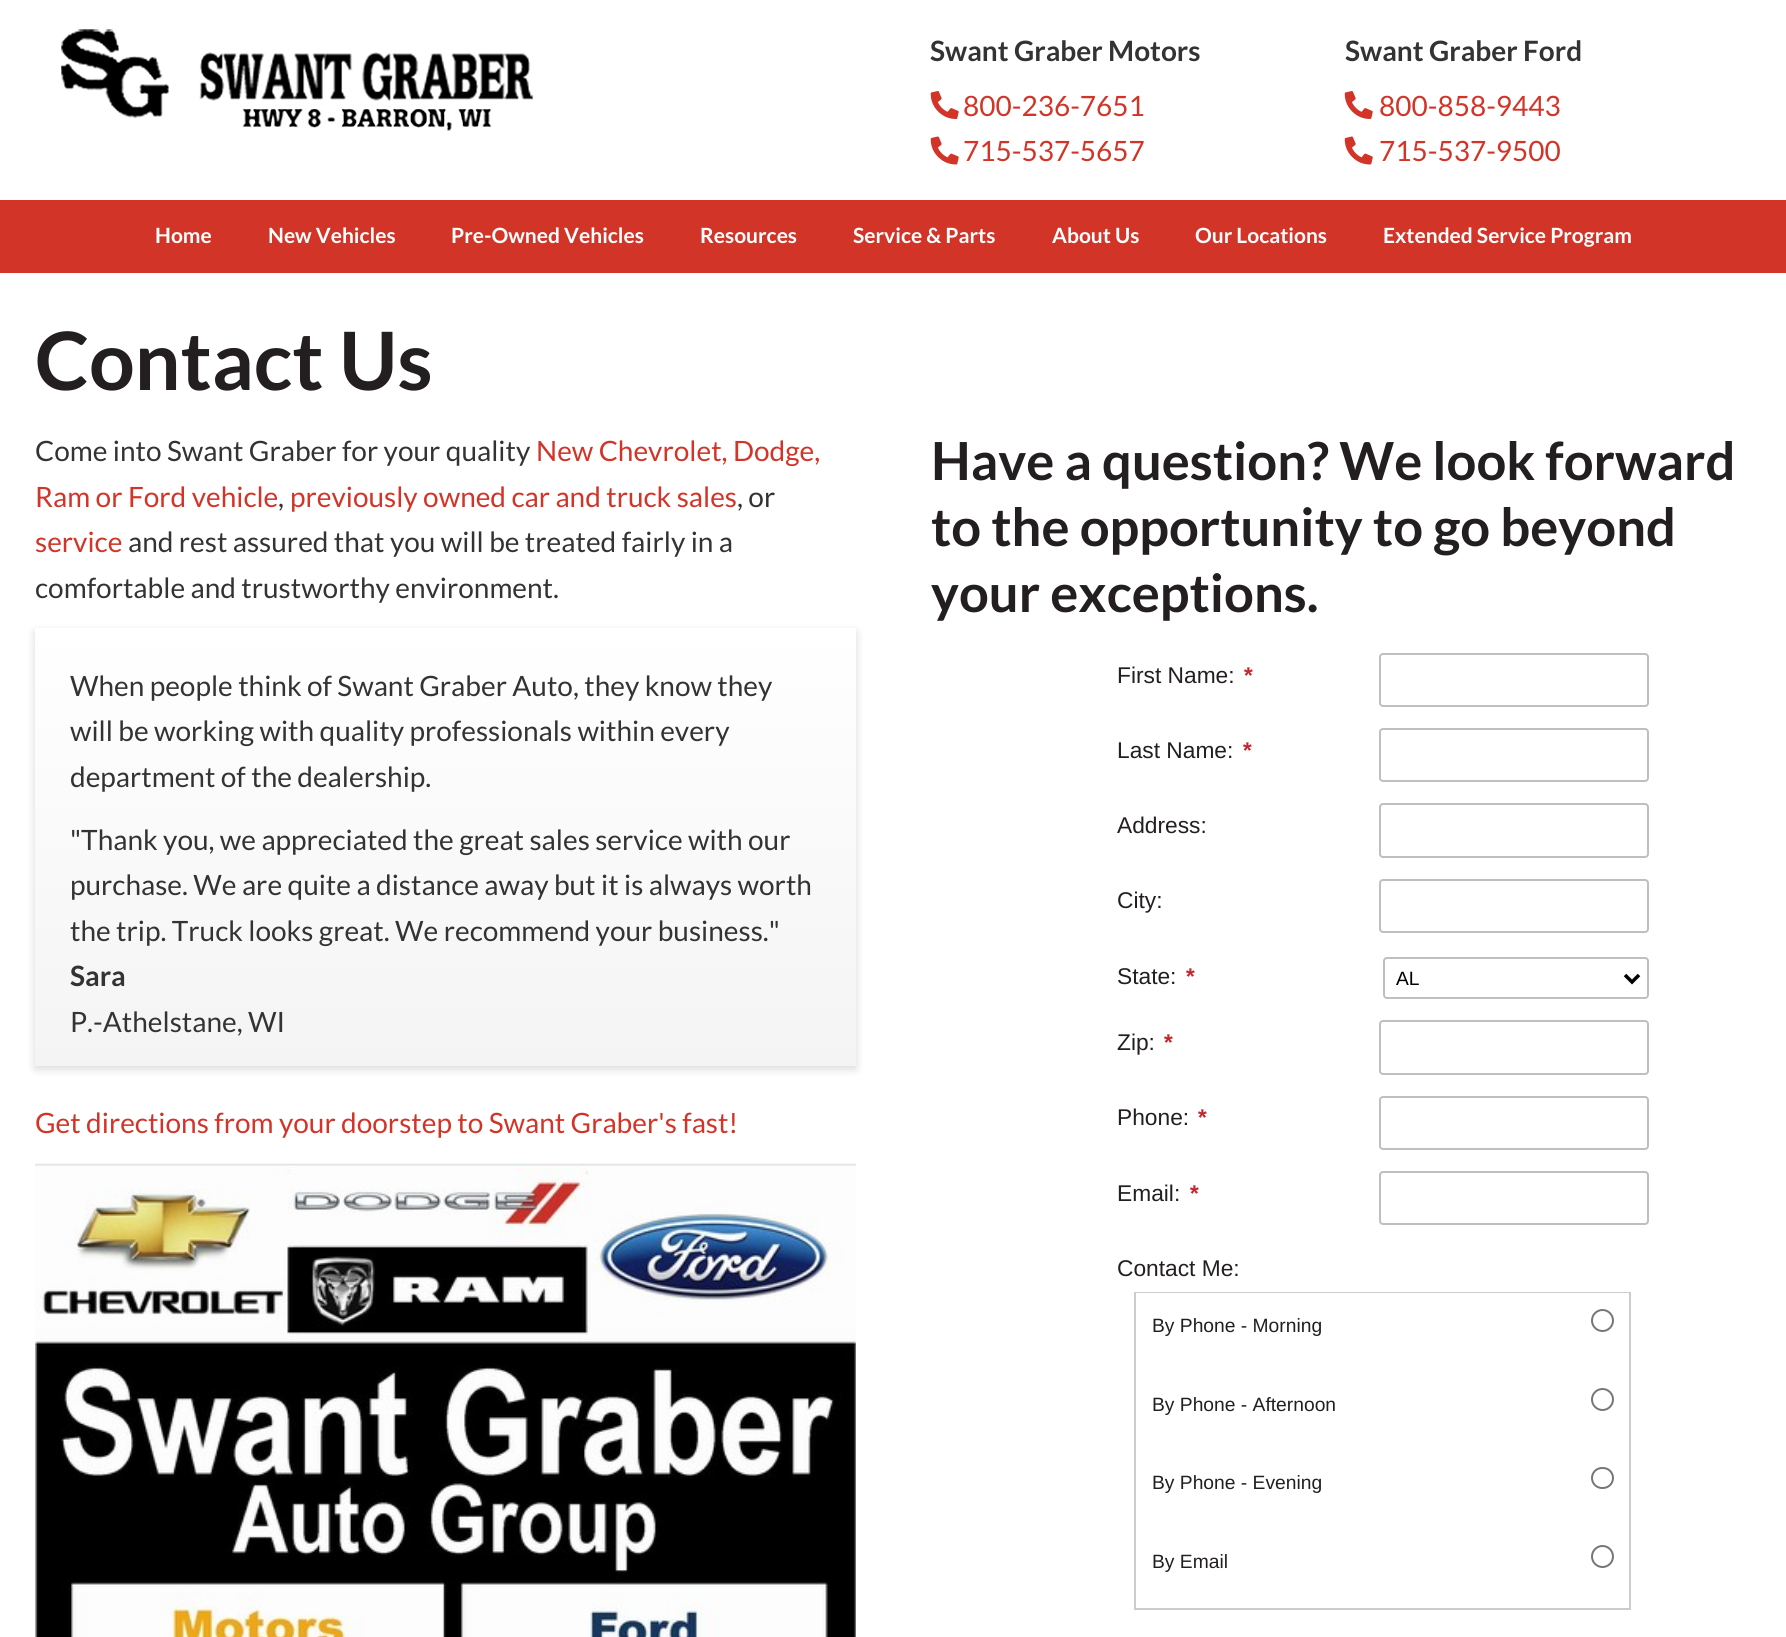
#include <cairo.h>
#include <math.h>
#include <stddef.h>


static void round_rect(cairo_t *cr, double x, double y, double w, double h, double r) {
    cairo_new_sub_path(cr);
    cairo_arc(cr, x + w - r, y + h - r, r, 0, M_PI / 2);
    cairo_arc(cr, x + r, y + h - r, r, M_PI / 2, M_PI);
    cairo_arc(cr, x + r, y + r, r, M_PI, 1.5 * M_PI);
    cairo_arc(cr, x + w - r, y + r, r, 1.5 * M_PI, 2 * M_PI);
    cairo_close_path(cr);
}

static void shadow(cairo_t *cr, double x, double y, double w, double h, double r, double blur, double alpha) {
    cairo_push_group_with_content(cr, CAIRO_CONTENT_ALPHA);
    cairo_set_operator(cr, CAIRO_OPERATOR_SOURCE);
    for (int i = 15; i >= -15 && fmin(w, h) + blur * i / 3 > 0; i -= 2) {
        double e = blur * i / 6;
        cairo_set_source_rgba(cr, 0, 0, 0, alpha * erfc((i - 1) / 8.5) / 2);
        round_rect(cr, x - e, y - e, w + 2 * e, h + 2 * e, fmax(0, fmin(r + e + blur * .6, fmin(w, h) / 2 + e)));
        cairo_fill(cr);
    }
    cairo_pattern_t *soft = cairo_pop_group(cr);
    cairo_mask(cr, soft);
    cairo_pattern_destroy(soft);
}

static void picture(cairo_t *cr, const char *path, double x, double y, double w, double h) {
    cairo_surface_t *image = cairo_image_surface_create_from_png(path);
    cairo_save(cr);
    cairo_set_source_surface(cr, image, x, y);
    cairo_rectangle(cr, x, y, w, h);
    cairo_fill(cr);
    cairo_restore(cr);
    cairo_surface_destroy(image);
}

int main(void) {
    cairo_surface_t *surface = cairo_image_surface_create(CAIRO_FORMAT_RGB24, 1786, 1637);
    cairo_t *cr = cairo_create(surface);
    cairo_font_options_t *options = cairo_font_options_create();
    cairo_font_options_set_hint_metrics(options, CAIRO_HINT_METRICS_OFF);
    cairo_font_options_set_hint_style(options, CAIRO_HINT_STYLE_NONE);
    cairo_set_font_options(cr, options);
    cairo_set_miter_limit(cr, 4);
    cairo_pattern_t *gradient;
    cairo_set_source_rgb(cr, 1, 1, 1);
    cairo_paint(cr);
    picture(cr, "img1.png", 61, 29, 472, 102);
    cairo_select_font_face(cr, "Lato", CAIRO_FONT_SLANT_NORMAL, CAIRO_FONT_WEIGHT_BOLD);
    cairo_set_font_size(cr, 28);
    cairo_set_source_rgb(cr, 0.2, 0.2, 0.2);
    cairo_move_to(cr, 930, 61);
    cairo_show_text(cr, "Swant Graber Motors");
    picture(cr, "img2.png", 930, 91, 29, 28);
    cairo_select_font_face(cr, "Lato", CAIRO_FONT_SLANT_NORMAL, CAIRO_FONT_WEIGHT_NORMAL);
    cairo_set_source_rgb(cr, 0.824, 0.204, 0.157);
    cairo_move_to(cr, 963, 116);
    cairo_show_text(cr, "800-236-7651");
    picture(cr, "img3.png", 930, 136, 29, 29);
    cairo_move_to(cr, 963, 161);
    cairo_show_text(cr, "715-537-5657");
    cairo_select_font_face(cr, "Lato", CAIRO_FONT_SLANT_NORMAL, CAIRO_FONT_WEIGHT_BOLD);
    cairo_set_source_rgb(cr, 0.2, 0.2, 0.2);
    cairo_move_to(cr, 1345, 61);
    cairo_show_text(cr, "Swant Graber Ford");
    picture(cr, "img4.png", 1344, 91, 29, 28);
    cairo_select_font_face(cr, "Lato", CAIRO_FONT_SLANT_NORMAL, CAIRO_FONT_WEIGHT_NORMAL);
    cairo_set_source_rgb(cr, 0.824, 0.204, 0.157);
    cairo_move_to(cr, 1379, 116);
    cairo_show_text(cr, "800-858-9443");
    picture(cr, "img5.png", 1344, 136, 29, 29);
    cairo_move_to(cr, 1379, 161);
    cairo_show_text(cr, "715-537-9500");
    cairo_rectangle(cr, 0, 200, 1786, 73);
    cairo_fill(cr);
    cairo_select_font_face(cr, "Lato", CAIRO_FONT_SLANT_NORMAL, CAIRO_FONT_WEIGHT_BOLD);
    cairo_set_font_size(cr, 21);
    cairo_set_source_rgb(cr, 1, 1, 1);
    cairo_move_to(cr, 155, 243);
    cairo_show_text(cr, "Home");
    cairo_move_to(cr, 268, 243);
    cairo_show_text(cr, "New Vehicles");
    cairo_move_to(cr, 451, 243);
    cairo_show_text(cr, "Pre-Owned Vehicles");
    cairo_move_to(cr, 700, 243);
    cairo_show_text(cr, "Resources");
    cairo_move_to(cr, 853, 243);
    cairo_show_text(cr, "Service & Parts");
    cairo_move_to(cr, 1052, 243);
    cairo_show_text(cr, "About Us");
    cairo_move_to(cr, 1195, 243);
    cairo_show_text(cr, "Our Locations");
    cairo_move_to(cr, 1383, 243);
    cairo_show_text(cr, "Extended Service Program");
    cairo_set_font_size(cr, 80.5);
    cairo_set_source_rgb(cr, 0.137, 0.122, 0.125);
    cairo_move_to(cr, 35, 390);
    cairo_show_text(cr, "Contact Us");
    cairo_select_font_face(cr, "Lato", CAIRO_FONT_SLANT_NORMAL, CAIRO_FONT_WEIGHT_NORMAL);
    cairo_set_font_size(cr, 28);
    cairo_set_source_rgb(cr, 0.2, 0.2, 0.2);
    cairo_move_to(cr, 35, 461);
    cairo_show_text(cr, "Come into Swant Graber for your quality");
    cairo_set_source_rgb(cr, 0.824, 0.204, 0.157);
    cairo_move_to(cr, 536, 461);
    cairo_show_text(cr, "New Chevrolet, Dodge,");
    cairo_move_to(cr, 35, 507);
    cairo_show_text(cr, "Ram or Ford vehicle");
    cairo_set_source_rgb(cr, 0.2, 0.2, 0.2);
    cairo_move_to(cr, 278, 507);
    cairo_show_text(cr, ",");
    cairo_set_source_rgb(cr, 0.824, 0.204, 0.157);
    cairo_move_to(cr, 290, 507);
    cairo_show_text(cr, "previously owned car and truck sales");
    cairo_set_source_rgb(cr, 0.2, 0.2, 0.2);
    cairo_move_to(cr, 737, 507);
    cairo_show_text(cr, ", or");
    cairo_set_source_rgb(cr, 0.824, 0.204, 0.157);
    cairo_move_to(cr, 35, 552);
    cairo_show_text(cr, "service");
    cairo_set_source_rgb(cr, 0.2, 0.2, 0.2);
    cairo_move_to(cr, 128, 552);
    cairo_show_text(cr, "and rest assured that you will be treated fairly in a");
    cairo_move_to(cr, 35, 598);
    cairo_show_text(cr, "comfortable and trustworthy environment.");
    cairo_set_source_rgb(cr, 0, 0, 0);
    shadow(cr, 35, 632, 821, 437, 0, 4.5, 0.15);
    gradient = cairo_pattern_create_linear(35, 628, 35, 1066);
    cairo_pattern_add_color_stop_rgba(gradient, 0, 1, 1, 1, 1);
    cairo_pattern_add_color_stop_rgba(gradient, 1, 0.957, 0.957, 0.957, 1);
    cairo_set_source(cr, gradient);
    cairo_pattern_destroy(gradient);
    cairo_rectangle(cr, 35, 628, 821, 438);
    cairo_fill(cr);
    cairo_set_source_rgb(cr, 0.2, 0.2, 0.2);
    cairo_move_to(cr, 70, 696);
    cairo_show_text(cr, "When people think of Swant Graber Auto, they know they");
    cairo_move_to(cr, 70, 741);
    cairo_show_text(cr, "will be working with quality professionals within every");
    cairo_move_to(cr, 70, 787);
    cairo_show_text(cr, "department of the dealership.");
    cairo_move_to(cr, 70, 850);
    cairo_show_text(cr, "\"Thank you, we appreciated the great sales service with our");
    cairo_move_to(cr, 70, 895);
    cairo_show_text(cr, "purchase. We are quite a distance away but it is always worth");
    cairo_move_to(cr, 70, 941);
    cairo_show_text(cr, "the trip. Truck looks great. We recommend your business.\"");
    cairo_select_font_face(cr, "Lato", CAIRO_FONT_SLANT_NORMAL, CAIRO_FONT_WEIGHT_BOLD);
    cairo_move_to(cr, 70, 986);
    cairo_show_text(cr, "Sara");
    cairo_select_font_face(cr, "Lato", CAIRO_FONT_SLANT_NORMAL, CAIRO_FONT_WEIGHT_NORMAL);
    cairo_move_to(cr, 70, 1032);
    cairo_show_text(cr, "P.-Athelstane, WI");
    cairo_set_source_rgb(cr, 0.824, 0.204, 0.157);
    cairo_move_to(cr, 35, 1133);
    cairo_show_text(cr, "Get directions from your doorstep to Swant Graber's fast!");
    picture(cr, "img6.png", 35, 1163, 821, 474);
    cairo_select_font_face(cr, "Lato", CAIRO_FONT_SLANT_NORMAL, CAIRO_FONT_WEIGHT_BOLD);
    cairo_set_font_size(cr, 52.5);
    cairo_set_source_rgb(cr, 0.137, 0.122, 0.125);
    cairo_move_to(cr, 931, 480);
    cairo_show_text(cr, "Have a question? We look forward");
    cairo_move_to(cr, 931, 546);
    cairo_show_text(cr, "to the opportunity to go beyond");
    cairo_move_to(cr, 931, 612);
    cairo_show_text(cr, "your exceptions.");
    cairo_select_font_face(cr, "Liberation Sans", CAIRO_FONT_SLANT_NORMAL, CAIRO_FONT_WEIGHT_NORMAL);
    cairo_set_font_size(cr, 22.75);
    cairo_move_to(cr, 1117, 683);
    cairo_show_text(cr, "First Name:");
    cairo_select_font_face(cr, "Liberation Sans", CAIRO_FONT_SLANT_ITALIC, CAIRO_FONT_WEIGHT_BOLD);
    cairo_set_source_rgb(cr, 0.757, 0.153, 0.176);
    cairo_move_to(cr, 1243, 683);
    cairo_show_text(cr, "*");
    round_rect(cr, 1380, 654, 268, 52, 3);
    cairo_set_source_rgb(cr, 0.749, 0.749, 0.749);
    cairo_stroke(cr);
    cairo_select_font_face(cr, "Liberation Sans", CAIRO_FONT_SLANT_NORMAL, CAIRO_FONT_WEIGHT_NORMAL);
    cairo_set_source_rgb(cr, 0.137, 0.122, 0.125);
    cairo_move_to(cr, 1117, 758);
    cairo_show_text(cr, "Last Name:");
    cairo_select_font_face(cr, "Liberation Sans", CAIRO_FONT_SLANT_ITALIC, CAIRO_FONT_WEIGHT_BOLD);
    cairo_set_source_rgb(cr, 0.757, 0.153, 0.176);
    cairo_move_to(cr, 1242, 758);
    cairo_show_text(cr, "*");
    round_rect(cr, 1380, 729, 268, 52, 3);
    cairo_set_source_rgb(cr, 0.749, 0.749, 0.749);
    cairo_stroke(cr);
    cairo_select_font_face(cr, "Liberation Sans", CAIRO_FONT_SLANT_NORMAL, CAIRO_FONT_WEIGHT_NORMAL);
    cairo_set_source_rgb(cr, 0.137, 0.122, 0.125);
    cairo_move_to(cr, 1117, 833);
    cairo_show_text(cr, "Address:");
    round_rect(cr, 1380, 804, 268, 53, 3);
    cairo_set_source_rgb(cr, 0.749, 0.749, 0.749);
    cairo_stroke(cr);
    cairo_set_source_rgb(cr, 0.137, 0.122, 0.125);
    cairo_move_to(cr, 1117, 908);
    cairo_show_text(cr, "City:");
    round_rect(cr, 1380, 880, 268, 52, 3);
    cairo_set_source_rgb(cr, 0.749, 0.749, 0.749);
    cairo_stroke(cr);
    cairo_set_source_rgb(cr, 0.137, 0.122, 0.125);
    cairo_move_to(cr, 1117, 984);
    cairo_show_text(cr, "State:");
    cairo_select_font_face(cr, "Liberation Sans", CAIRO_FONT_SLANT_ITALIC, CAIRO_FONT_WEIGHT_BOLD);
    cairo_set_source_rgb(cr, 0.757, 0.153, 0.176);
    cairo_move_to(cr, 1185, 984);
    cairo_show_text(cr, "*");
    round_rect(cr, 1384, 958, 264, 40, 3);
    cairo_set_source_rgb(cr, 0.749, 0.749, 0.749);
    cairo_stroke(cr);
    cairo_new_path(cr);
    cairo_move_to(cr, 1625, 975);
    cairo_line_to(cr, 1632, 982);
    cairo_line_to(cr, 1639, 975);
    cairo_set_source_rgb(cr, 0, 0, 0);
    cairo_set_line_width(cr, 3.5);
    cairo_stroke(cr);
    cairo_select_font_face(cr, "Liberation Sans", CAIRO_FONT_SLANT_NORMAL, CAIRO_FONT_WEIGHT_NORMAL);
    cairo_set_font_size(cr, 19.25);
    cairo_move_to(cr, 1396, 985);
    cairo_show_text(cr, "AL");
    cairo_set_font_size(cr, 22.75);
    cairo_set_source_rgb(cr, 0.137, 0.122, 0.125);
    cairo_move_to(cr, 1117, 1050);
    cairo_show_text(cr, "Zip:");
    cairo_select_font_face(cr, "Liberation Sans", CAIRO_FONT_SLANT_ITALIC, CAIRO_FONT_WEIGHT_BOLD);
    cairo_set_source_rgb(cr, 0.757, 0.153, 0.176);
    cairo_move_to(cr, 1163, 1050);
    cairo_show_text(cr, "*");
    round_rect(cr, 1380, 1021, 268, 53, 3);
    cairo_set_source_rgb(cr, 0.749, 0.749, 0.749);
    cairo_set_line_width(cr, 2);
    cairo_stroke(cr);
    cairo_select_font_face(cr, "Liberation Sans", CAIRO_FONT_SLANT_NORMAL, CAIRO_FONT_WEIGHT_NORMAL);
    cairo_set_source_rgb(cr, 0.137, 0.122, 0.125);
    cairo_move_to(cr, 1117, 1125);
    cairo_show_text(cr, "Phone:");
    cairo_select_font_face(cr, "Liberation Sans", CAIRO_FONT_SLANT_ITALIC, CAIRO_FONT_WEIGHT_BOLD);
    cairo_set_source_rgb(cr, 0.757, 0.153, 0.176);
    cairo_move_to(cr, 1197, 1125);
    cairo_show_text(cr, "*");
    round_rect(cr, 1380, 1097, 268, 52, 3);
    cairo_set_source_rgb(cr, 0.749, 0.749, 0.749);
    cairo_stroke(cr);
    cairo_select_font_face(cr, "Liberation Sans", CAIRO_FONT_SLANT_NORMAL, CAIRO_FONT_WEIGHT_NORMAL);
    cairo_set_source_rgb(cr, 0.137, 0.122, 0.125);
    cairo_move_to(cr, 1117, 1201);
    cairo_show_text(cr, "Email:");
    cairo_select_font_face(cr, "Liberation Sans", CAIRO_FONT_SLANT_ITALIC, CAIRO_FONT_WEIGHT_BOLD);
    cairo_set_source_rgb(cr, 0.757, 0.153, 0.176);
    cairo_move_to(cr, 1189, 1201);
    cairo_show_text(cr, "*");
    round_rect(cr, 1380, 1172, 268, 52, 3);
    cairo_set_source_rgb(cr, 0.749, 0.749, 0.749);
    cairo_stroke(cr);
    cairo_select_font_face(cr, "Liberation Sans", CAIRO_FONT_SLANT_NORMAL, CAIRO_FONT_WEIGHT_NORMAL);
    cairo_set_source_rgb(cr, 0.137, 0.122, 0.125);
    cairo_move_to(cr, 1117, 1276);
    cairo_show_text(cr, "Contact Me:");
    cairo_rectangle(cr, 1135, 1293, 495, 316);
    cairo_set_source_rgb(cr, 0.8, 0.8, 0.8);
    cairo_stroke(cr);
    cairo_set_source_rgb(cr, 1, 1, 1);
    cairo_rectangle(cr, 1136, 1293, 493, 1);
    cairo_fill(cr);
    cairo_set_font_size(cr, 19.25);
    cairo_set_source_rgb(cr, 0.137, 0.122, 0.125);
    cairo_move_to(cr, 1152, 1332);
    cairo_show_text(cr, "By Phone - Morning");
    cairo_new_path(cr);
    cairo_arc(cr, 1602.5, 1320.5, 10.5, 0, 2 * M_PI);
    cairo_set_source_rgb(cr, 0.463, 0.463, 0.463);
    cairo_stroke(cr);
    cairo_set_source_rgb(cr, 0.137, 0.122, 0.125);
    cairo_move_to(cr, 1152, 1411);
    cairo_show_text(cr, "By Phone - Afternoon");
    cairo_new_path(cr);
    cairo_arc(cr, 1602.5, 1399.5, 10.5, 0, 2 * M_PI);
    cairo_set_source_rgb(cr, 0.463, 0.463, 0.463);
    cairo_stroke(cr);
    cairo_set_source_rgb(cr, 0.137, 0.122, 0.125);
    cairo_move_to(cr, 1152, 1489);
    cairo_show_text(cr, "By Phone - Evening");
    round_rect(cr, 1592, 1468, 21, 20, 10);
    cairo_set_source_rgb(cr, 0.463, 0.463, 0.463);
    cairo_stroke(cr);
    cairo_set_source_rgb(cr, 0.137, 0.122, 0.125);
    cairo_move_to(cr, 1152, 1568);
    cairo_show_text(cr, "By Email");
    cairo_new_path(cr);
    cairo_arc(cr, 1602.5, 1556.5, 10.5, 0, 2 * M_PI);
    cairo_set_source_rgb(cr, 0.463, 0.463, 0.463);
    cairo_stroke(cr);
    cairo_surface_write_to_png(surface, "page.png");
    cairo_font_options_destroy(options);
    cairo_destroy(cr);
    cairo_surface_destroy(surface);
    return 0;
}
